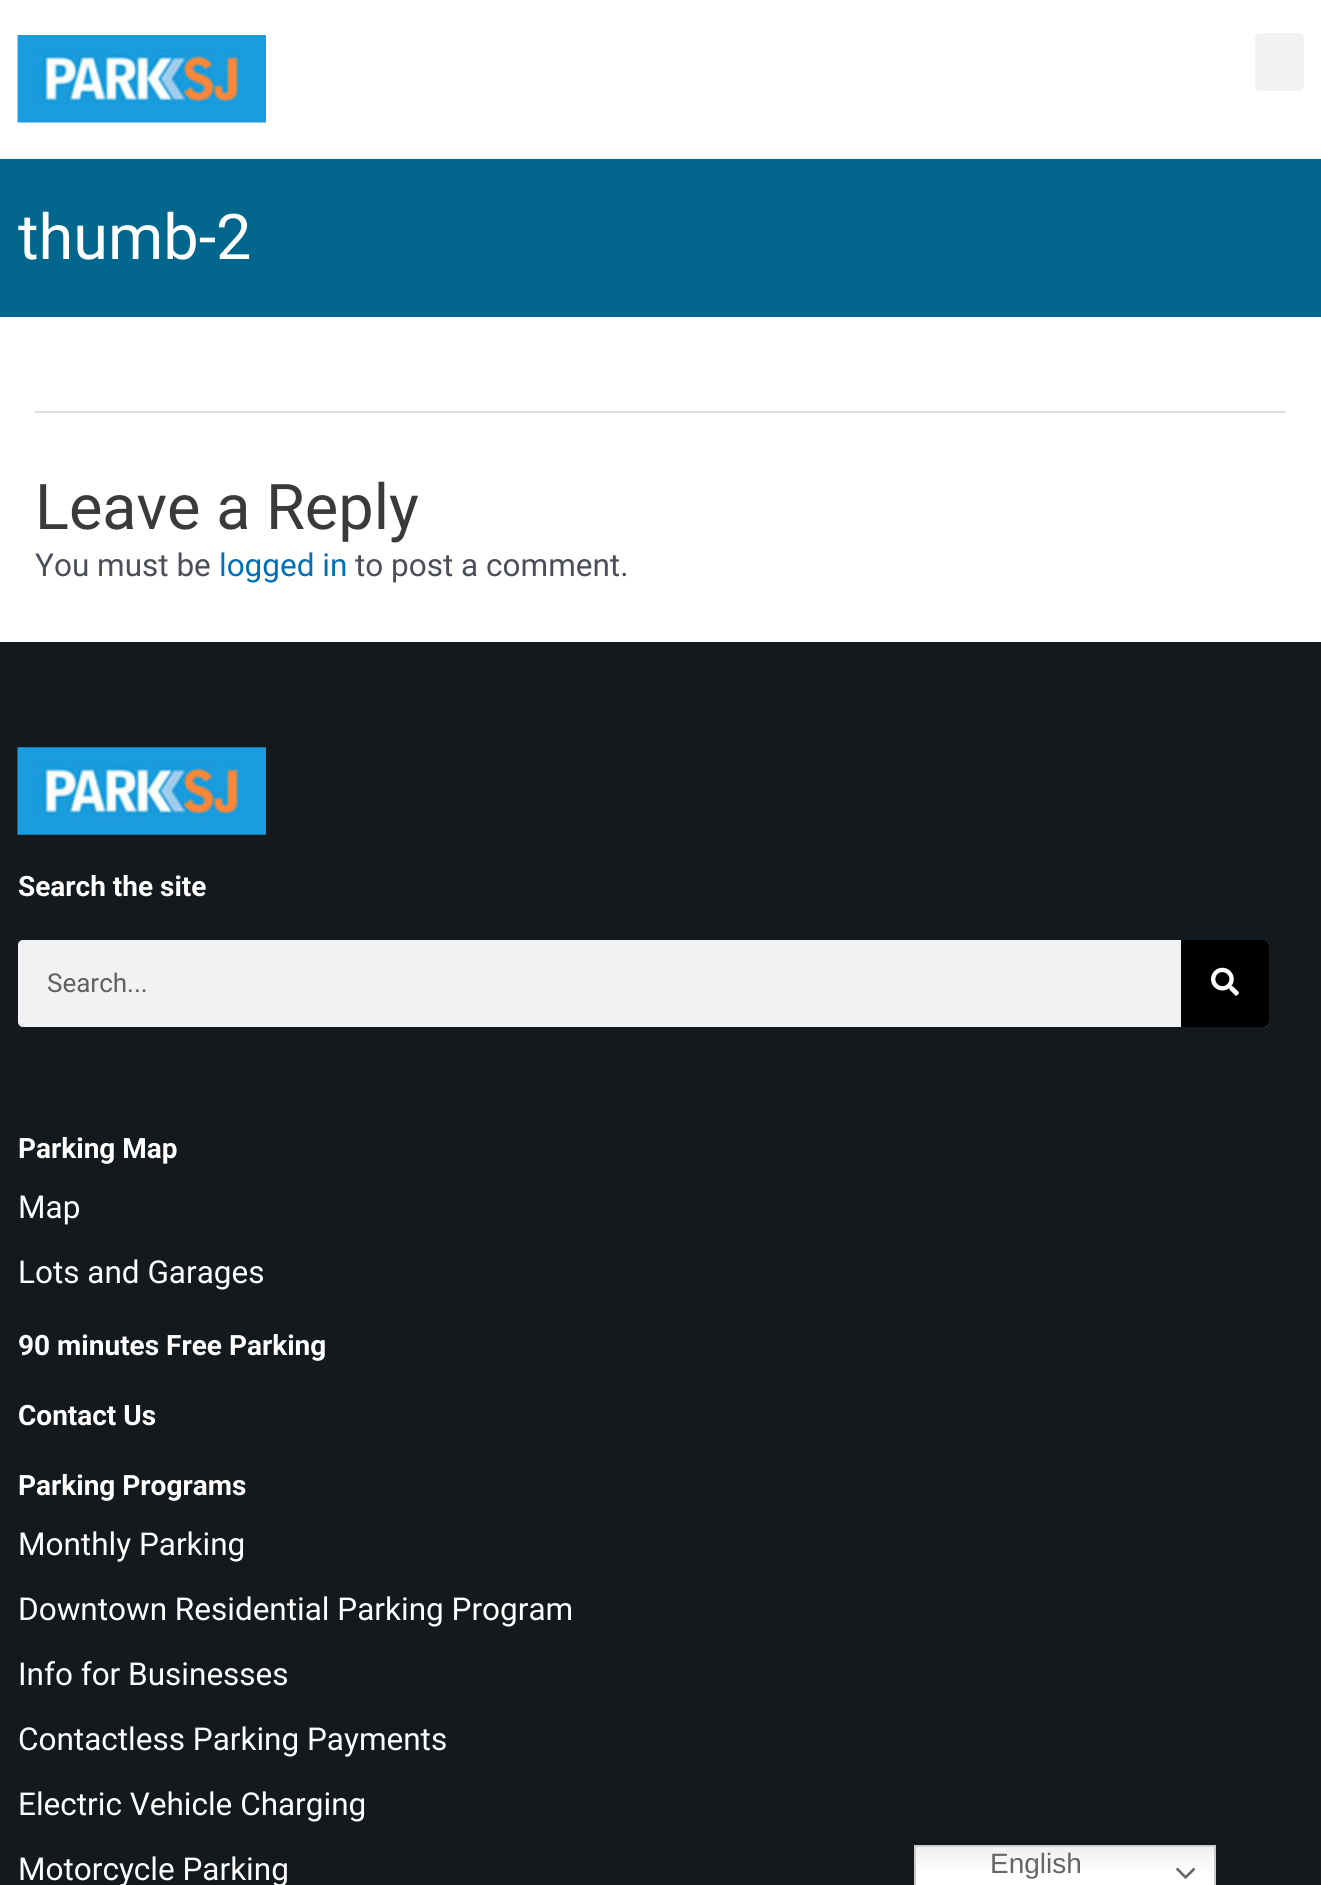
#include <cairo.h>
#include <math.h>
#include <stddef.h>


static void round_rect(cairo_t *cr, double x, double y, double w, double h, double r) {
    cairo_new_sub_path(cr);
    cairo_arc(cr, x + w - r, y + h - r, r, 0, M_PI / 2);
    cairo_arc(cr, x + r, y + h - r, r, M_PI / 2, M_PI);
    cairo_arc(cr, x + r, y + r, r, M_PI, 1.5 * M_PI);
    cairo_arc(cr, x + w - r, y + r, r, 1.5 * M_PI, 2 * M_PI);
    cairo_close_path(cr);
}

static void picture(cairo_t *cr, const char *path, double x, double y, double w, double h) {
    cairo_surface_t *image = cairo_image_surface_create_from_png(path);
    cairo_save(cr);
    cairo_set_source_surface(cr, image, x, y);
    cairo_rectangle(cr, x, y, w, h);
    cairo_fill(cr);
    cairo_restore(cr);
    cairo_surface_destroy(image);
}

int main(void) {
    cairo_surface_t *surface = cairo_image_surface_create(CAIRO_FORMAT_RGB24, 1321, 1885);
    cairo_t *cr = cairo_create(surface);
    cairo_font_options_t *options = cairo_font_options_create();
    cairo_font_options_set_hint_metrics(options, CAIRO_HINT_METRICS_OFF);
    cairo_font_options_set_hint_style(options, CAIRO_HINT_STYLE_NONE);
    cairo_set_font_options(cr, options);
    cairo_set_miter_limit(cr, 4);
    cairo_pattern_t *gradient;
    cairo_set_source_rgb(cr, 1, 1, 1);
    cairo_paint(cr);
    cairo_set_source_rgb(cr, 0.961, 0.961, 0.961);
    cairo_rectangle(cr, 0, 158, 1321, 1);
    cairo_fill(cr);
    picture(cr, "img1.png", 17, 35, 249, 88);
    cairo_set_source_rgb(cr, 0.949, 0.949, 0.949);
    round_rect(cr, 1255, 33, 49, 58, 5);
    cairo_fill(cr);
    cairo_set_source_rgb(cr, 0.008, 0.4, 0.553);
    cairo_rectangle(cr, 0, 159, 1321, 158);
    cairo_fill(cr);
    cairo_select_font_face(cr, "Roboto", CAIRO_FONT_SLANT_NORMAL, CAIRO_FONT_WEIGHT_NORMAL);
    cairo_set_font_size(cr, 63);
    cairo_set_source_rgb(cr, 1, 1, 1);
    cairo_move_to(cr, 18, 259);
    cairo_show_text(cr, "thumb-2");
    cairo_set_source_rgb(cr, 0.867, 0.867, 0.867);
    cairo_rectangle(cr, 35, 411, 1251, 2);
    cairo_fill(cr);
    cairo_set_source_rgb(cr, 0.227, 0.227, 0.227);
    cairo_move_to(cr, 35, 529);
    cairo_show_text(cr, "Leave a Reply");
    cairo_set_font_size(cr, 31.5);
    cairo_set_source_rgb(cr, 0.294, 0.31, 0.345);
    cairo_move_to(cr, 35, 576);
    cairo_show_text(cr, "You must be");
    cairo_set_source_rgb(cr, 0.004, 0.439, 0.725);
    cairo_move_to(cr, 219, 576);
    cairo_show_text(cr, "logged in");
    cairo_set_source_rgb(cr, 0.294, 0.31, 0.345);
    cairo_move_to(cr, 355, 576);
    cairo_show_text(cr, "to post a comment.");
    cairo_set_source_rgb(cr, 0.075, 0.098, 0.114);
    cairo_rectangle(cr, 0, 642, 1321, 1243);
    cairo_fill(cr);
    picture(cr, "img2.png", 17, 747, 249, 88);
    cairo_select_font_face(cr, "Roboto", CAIRO_FONT_SLANT_NORMAL, CAIRO_FONT_WEIGHT_BOLD);
    cairo_set_font_size(cr, 28);
    cairo_set_source_rgb(cr, 1, 1, 1);
    cairo_move_to(cr, 18, 896);
    cairo_show_text(cr, "Search the site");
    cairo_set_source_rgb(cr, 0.945, 0.949, 0.953);
    round_rect(cr, 18, 940, 1251, 87, 5);
    cairo_fill(cr);
    cairo_select_font_face(cr, "Roboto", CAIRO_FONT_SLANT_NORMAL, CAIRO_FONT_WEIGHT_NORMAL);
    cairo_set_font_size(cr, 26);
    cairo_set_source_rgb(cr, 0.376, 0.38, 0.38);
    cairo_move_to(cr, 47, 992);
    cairo_show_text(cr, "Search...");
    cairo_set_source_rgb(cr, 0, 0, 0);
    cairo_new_path(cr);
    cairo_move_to(cr, 1181, 940);
    cairo_line_to(cr, 1264, 940);
    cairo_curve_to(cr, 1267, 940, 1269, 942, 1269, 945);
    cairo_line_to(cr, 1269, 1022);
    cairo_curve_to(cr, 1269, 1025, 1267, 1027, 1264, 1027);
    cairo_line_to(cr, 1181, 1027);
    cairo_close_path(cr);
    cairo_fill(cr);
    picture(cr, "img3.png", 1211, 967, 28, 29);
    cairo_select_font_face(cr, "Roboto", CAIRO_FONT_SLANT_NORMAL, CAIRO_FONT_WEIGHT_BOLD);
    cairo_set_font_size(cr, 28);
    cairo_set_source_rgb(cr, 1, 1, 1);
    cairo_move_to(cr, 18, 1158);
    cairo_show_text(cr, "Parking Map");
    cairo_select_font_face(cr, "Roboto", CAIRO_FONT_SLANT_NORMAL, CAIRO_FONT_WEIGHT_NORMAL);
    cairo_set_font_size(cr, 31.5);
    cairo_move_to(cr, 18, 1218);
    cairo_show_text(cr, "Map");
    cairo_move_to(cr, 18, 1283);
    cairo_show_text(cr, "Lots and Garages");
    cairo_select_font_face(cr, "Roboto", CAIRO_FONT_SLANT_NORMAL, CAIRO_FONT_WEIGHT_BOLD);
    cairo_set_font_size(cr, 28);
    cairo_move_to(cr, 18, 1355);
    cairo_show_text(cr, "90 minutes Free Parking");
    cairo_move_to(cr, 18, 1425);
    cairo_show_text(cr, "Contact Us");
    cairo_move_to(cr, 18, 1495);
    cairo_show_text(cr, "Parking Programs");
    cairo_select_font_face(cr, "Roboto", CAIRO_FONT_SLANT_NORMAL, CAIRO_FONT_WEIGHT_NORMAL);
    cairo_set_font_size(cr, 31.5);
    cairo_move_to(cr, 18, 1555);
    cairo_show_text(cr, "Monthly Parking");
    cairo_move_to(cr, 18, 1620);
    cairo_show_text(cr, "Downtown Residential Parking Program");
    cairo_move_to(cr, 18, 1685);
    cairo_show_text(cr, "Info for Businesses");
    cairo_move_to(cr, 18, 1750);
    cairo_show_text(cr, "Contactless Parking Payments");
    cairo_move_to(cr, 18, 1815);
    cairo_show_text(cr, "Electric Vehicle Charging");
    cairo_move_to(cr, 18, 1880);
    cairo_show_text(cr, "Motorcycle Parking");
    gradient = cairo_pattern_create_linear(1065, 1845, 1065, 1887);
    cairo_pattern_add_color_stop_rgba(gradient, 0, 0.937, 0.937, 0.937, 1);
    cairo_pattern_add_color_stop_rgba(gradient, 0.7, 1, 1, 1, 1);
    cairo_set_source(cr, gradient);
    cairo_pattern_destroy(gradient);
    cairo_rectangle(cr, 916, 1847, 298, 38);
    cairo_fill(cr);
    cairo_rectangle(cr, 915, 1846, 300, 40);
    cairo_set_source_rgb(cr, 0.8, 0.8, 0.8);
    cairo_stroke(cr);
    cairo_select_font_face(cr, "Liberation Sans", CAIRO_FONT_SLANT_NORMAL, CAIRO_FONT_WEIGHT_NORMAL);
    cairo_set_font_size(cr, 28);
    cairo_set_source_rgb(cr, 0.4, 0.4, 0.4);
    cairo_move_to(cr, 990, 1873);
    cairo_show_text(cr, "English");
    picture(cr, "img4.png", 1176, 1867, 19, 12);
    cairo_surface_write_to_png(surface, "page.png");
    cairo_font_options_destroy(options);
    cairo_destroy(cr);
    cairo_surface_destroy(surface);
    return 0;
}
